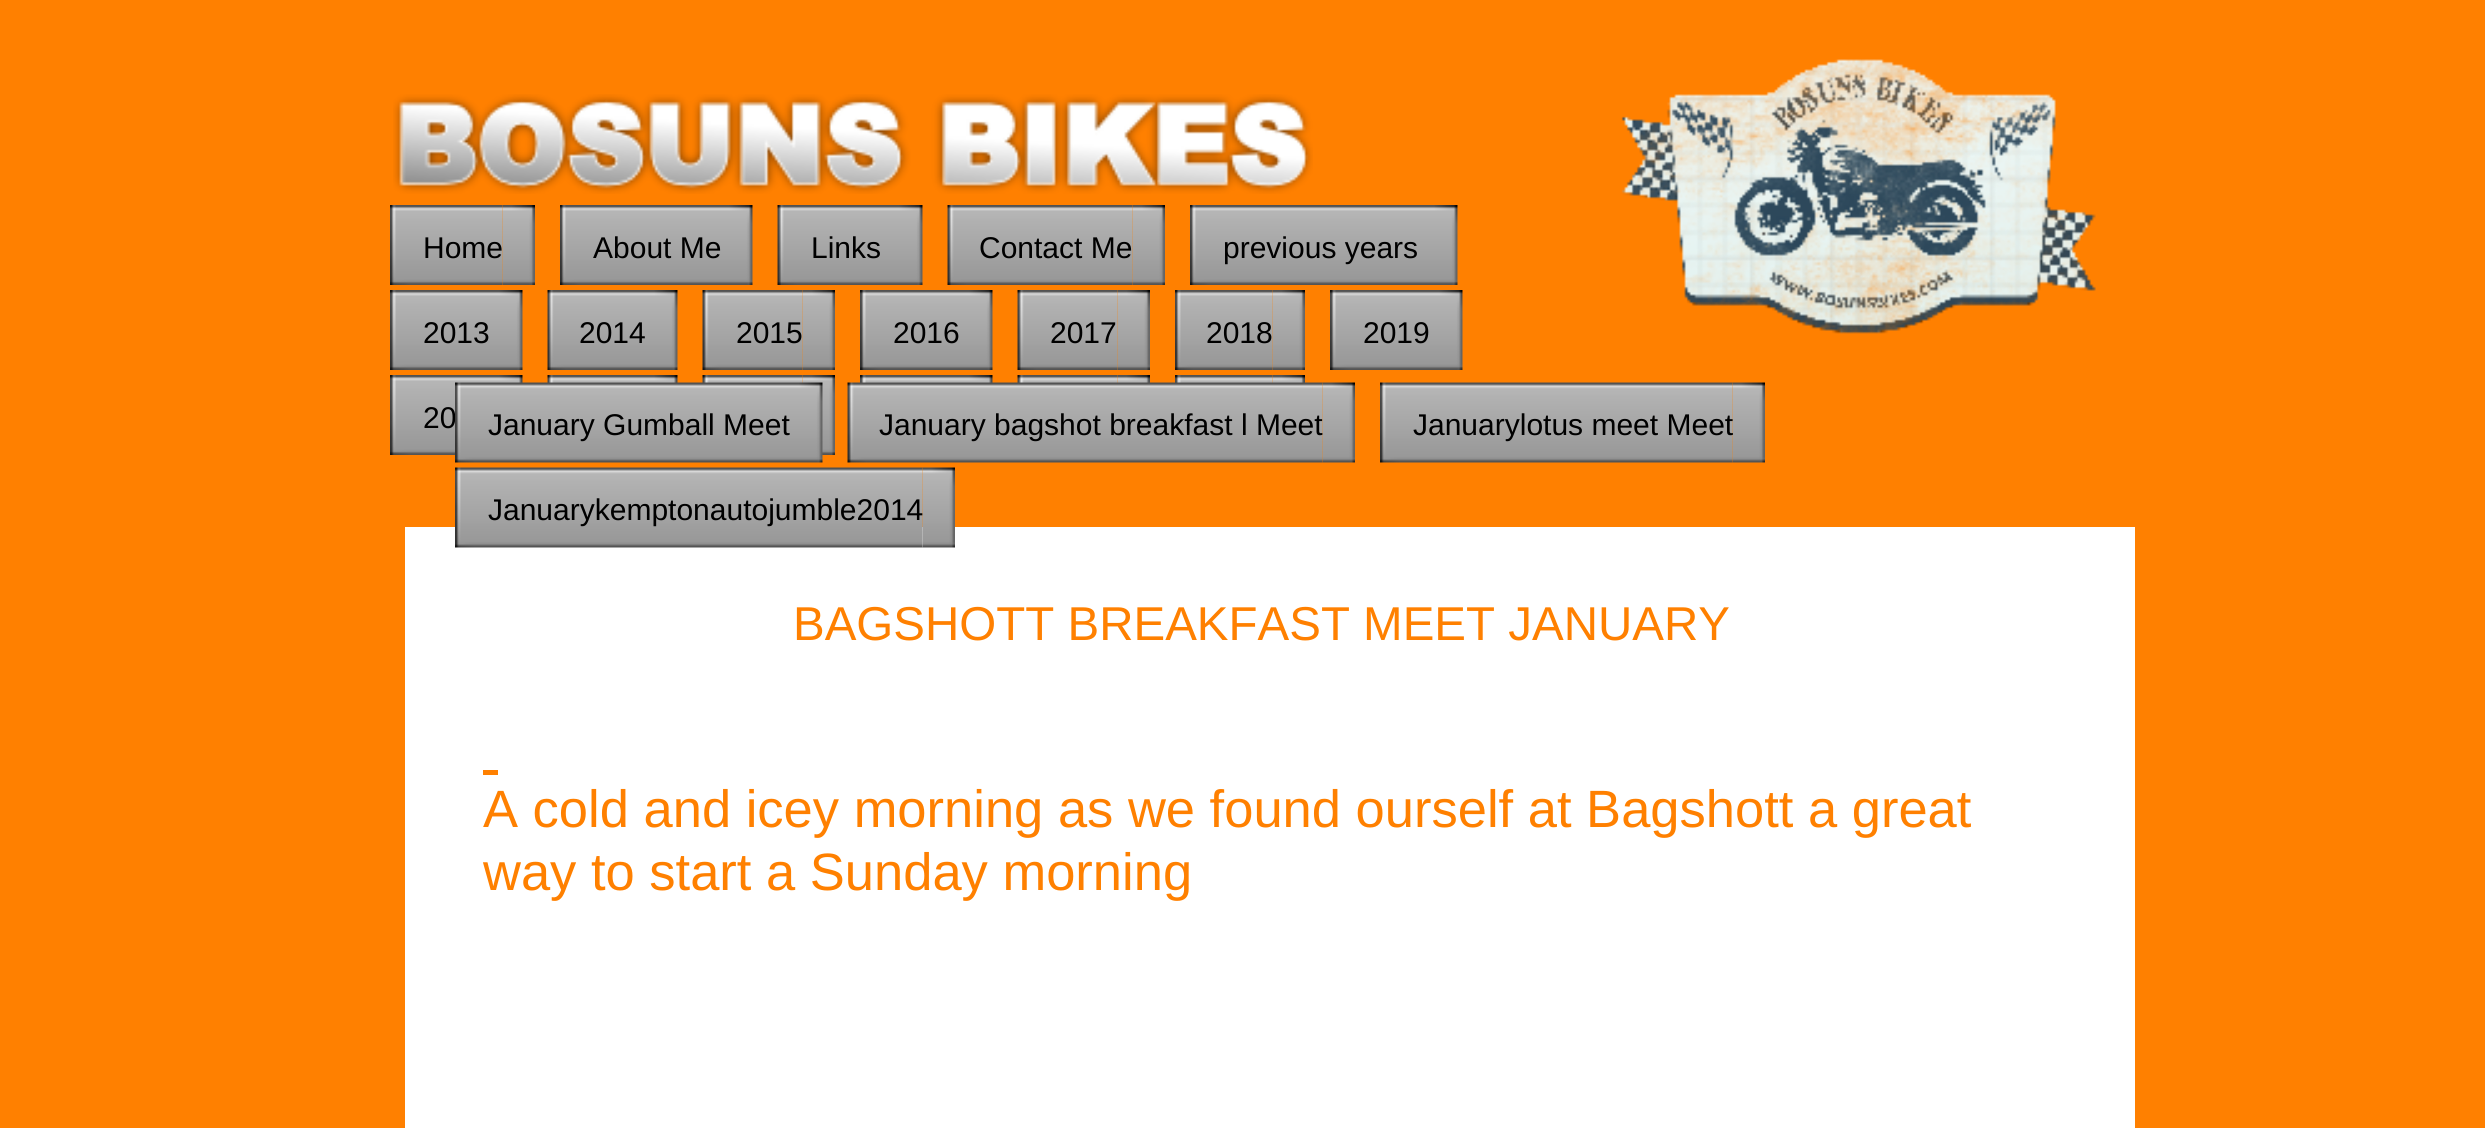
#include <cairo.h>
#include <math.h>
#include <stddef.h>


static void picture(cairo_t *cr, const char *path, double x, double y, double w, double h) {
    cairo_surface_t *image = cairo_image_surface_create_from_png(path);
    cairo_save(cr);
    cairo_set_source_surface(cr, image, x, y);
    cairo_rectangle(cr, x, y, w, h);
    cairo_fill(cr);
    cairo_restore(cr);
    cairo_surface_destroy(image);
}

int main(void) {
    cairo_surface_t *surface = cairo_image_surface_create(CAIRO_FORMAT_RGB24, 2485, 1128);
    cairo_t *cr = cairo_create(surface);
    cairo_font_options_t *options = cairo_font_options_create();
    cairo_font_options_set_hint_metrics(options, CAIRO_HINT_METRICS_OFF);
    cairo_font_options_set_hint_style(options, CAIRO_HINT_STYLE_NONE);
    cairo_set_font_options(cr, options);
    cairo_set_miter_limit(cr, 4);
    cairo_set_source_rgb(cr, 1, 0.502, 0);
    cairo_paint(cr);
    picture(cr, "img1.png", 393, 94, 920, 100);
    picture(cr, "img2.png", 1621, 59, 475, 275);
    picture(cr, "img3.png", 502, 205, 33, 80);
    picture(cr, "img4.png", 390, 205, 113, 80);
    cairo_select_font_face(cr, "Liberation Sans", CAIRO_FONT_SLANT_NORMAL, CAIRO_FONT_WEIGHT_NORMAL);
    cairo_set_font_size(cr, 30);
    cairo_set_source_rgb(cr, 0, 0, 0);
    cairo_move_to(cr, 423, 258);
    cairo_show_text(cr, "Home");
    picture(cr, "img5.png", 720, 205, 33, 80);
    picture(cr, "img6.png", 560, 205, 160, 80);
    cairo_move_to(cr, 593, 258);
    cairo_show_text(cr, "About Me");
    picture(cr, "img7.png", 890, 205, 33, 80);
    picture(cr, "img8.png", 777, 205, 113, 80);
    cairo_move_to(cr, 811, 258);
    cairo_show_text(cr, "Links");
    picture(cr, "img9.png", 1132, 205, 33, 80);
    picture(cr, "img10.png", 947, 205, 186, 80);
    cairo_move_to(cr, 979, 258);
    cairo_show_text(cr, "Contact Me");
    picture(cr, "img7.png", 1425, 205, 33, 80);
    picture(cr, "img11.png", 1190, 205, 235, 80);
    cairo_move_to(cr, 1223, 258);
    cairo_show_text(cr, "previous years");
    picture(cr, "img12.png", 490, 290, 33, 80);
    picture(cr, "img13.png", 390, 290, 100, 80);
    cairo_move_to(cr, 423, 343);
    cairo_show_text(cr, "2013");
    picture(cr, "img14.png", 645, 290, 33, 80);
    picture(cr, "img15.png", 547, 290, 98, 80);
    cairo_move_to(cr, 579, 343);
    cairo_show_text(cr, "2014");
    picture(cr, "img16.png", 802, 290, 33, 80);
    picture(cr, "img17.png", 702, 290, 101, 80);
    cairo_move_to(cr, 736, 343);
    cairo_show_text(cr, "2015");
    picture(cr, "img18.png", 960, 290, 33, 80);
    picture(cr, "img13.png", 860, 290, 100, 80);
    cairo_move_to(cr, 893, 343);
    cairo_show_text(cr, "2016");
    picture(cr, "img16.png", 1117, 290, 33, 80);
    picture(cr, "img17.png", 1017, 290, 101, 80);
    cairo_move_to(cr, 1050, 343);
    cairo_show_text(cr, "2017");
    picture(cr, "img19.png", 1272, 290, 33, 80);
    picture(cr, "img20.png", 1175, 290, 98, 80);
    cairo_move_to(cr, 1206, 343);
    cairo_show_text(cr, "2018");
    picture(cr, "img14.png", 1430, 290, 33, 80);
    picture(cr, "img13.png", 1330, 290, 100, 80);
    cairo_move_to(cr, 1363, 343);
    cairo_show_text(cr, "2019");
    picture(cr, "img21.png", 645, 375, 33, 8);
    picture(cr, "img22.png", 547, 375, 98, 8);
    picture(cr, "img9.png", 802, 375, 33, 80);
    picture(cr, "img23.png", 702, 375, 101, 8);
    picture(cr, "img24.png", 960, 375, 33, 8);
    picture(cr, "img25.png", 860, 375, 100, 8);
    picture(cr, "img26.png", 1117, 375, 33, 8);
    picture(cr, "img23.png", 1017, 375, 101, 8);
    picture(cr, "img27.png", 1272, 375, 33, 8);
    picture(cr, "img28.png", 1175, 375, 98, 8);
    picture(cr, "img29.png", 490, 375, 33, 8);
    picture(cr, "img30.png", 390, 375, 100, 80);
    cairo_move_to(cr, 423, 428);
    cairo_show_text(cr, "20");
    picture(cr, "img31.png", 790, 382, 33, 81);
    picture(cr, "img32.png", 455, 382, 335, 81);
    cairo_move_to(cr, 488, 435);
    cairo_show_text(cr, "January Gumball Meet");
    picture(cr, "img33.png", 1322, 382, 33, 81);
    picture(cr, "img34.png", 847, 382, 476, 81);
    cairo_move_to(cr, 879, 435);
    cairo_show_text(cr, "January bagshot breakfast l Meet");
    picture(cr, "img35.png", 1732, 382, 33, 81);
    picture(cr, "img36.png", 1380, 382, 353, 81);
    cairo_move_to(cr, 1413, 435);
    cairo_show_text(cr, "Januarylotus meet Meet");
    cairo_set_source_rgb(cr, 1, 1, 1);
    cairo_rectangle(cr, 405, 527, 1730, 601);
    cairo_fill(cr);
    picture(cr, "img37.png", 922, 467, 33, 81);
    picture(cr, "img38.png", 455, 467, 468, 81);
    cairo_set_source_rgb(cr, 0, 0, 0);
    cairo_move_to(cr, 488, 520);
    cairo_show_text(cr, "Januarykemptonautojumble2014");
    cairo_set_font_size(cr, 47.5);
    cairo_set_source_rgb(cr, 1, 0.502, 0);
    cairo_move_to(cr, 793, 640);
    cairo_show_text(cr, "BAGSHOTT BREAKFAST MEET JANUARY");
    cairo_rectangle(cr, 483, 770, 15, 5);
    cairo_fill(cr);
    cairo_set_font_size(cr, 52.5);
    cairo_move_to(cr, 483, 827);
    cairo_show_text(cr, "A cold and icey morning as we found ourself at Bagshott a great");
    cairo_move_to(cr, 483, 890);
    cairo_show_text(cr, "way to start a Sunday morning");
    cairo_surface_write_to_png(surface, "page.png");
    cairo_font_options_destroy(options);
    cairo_destroy(cr);
    cairo_surface_destroy(surface);
    return 0;
}
